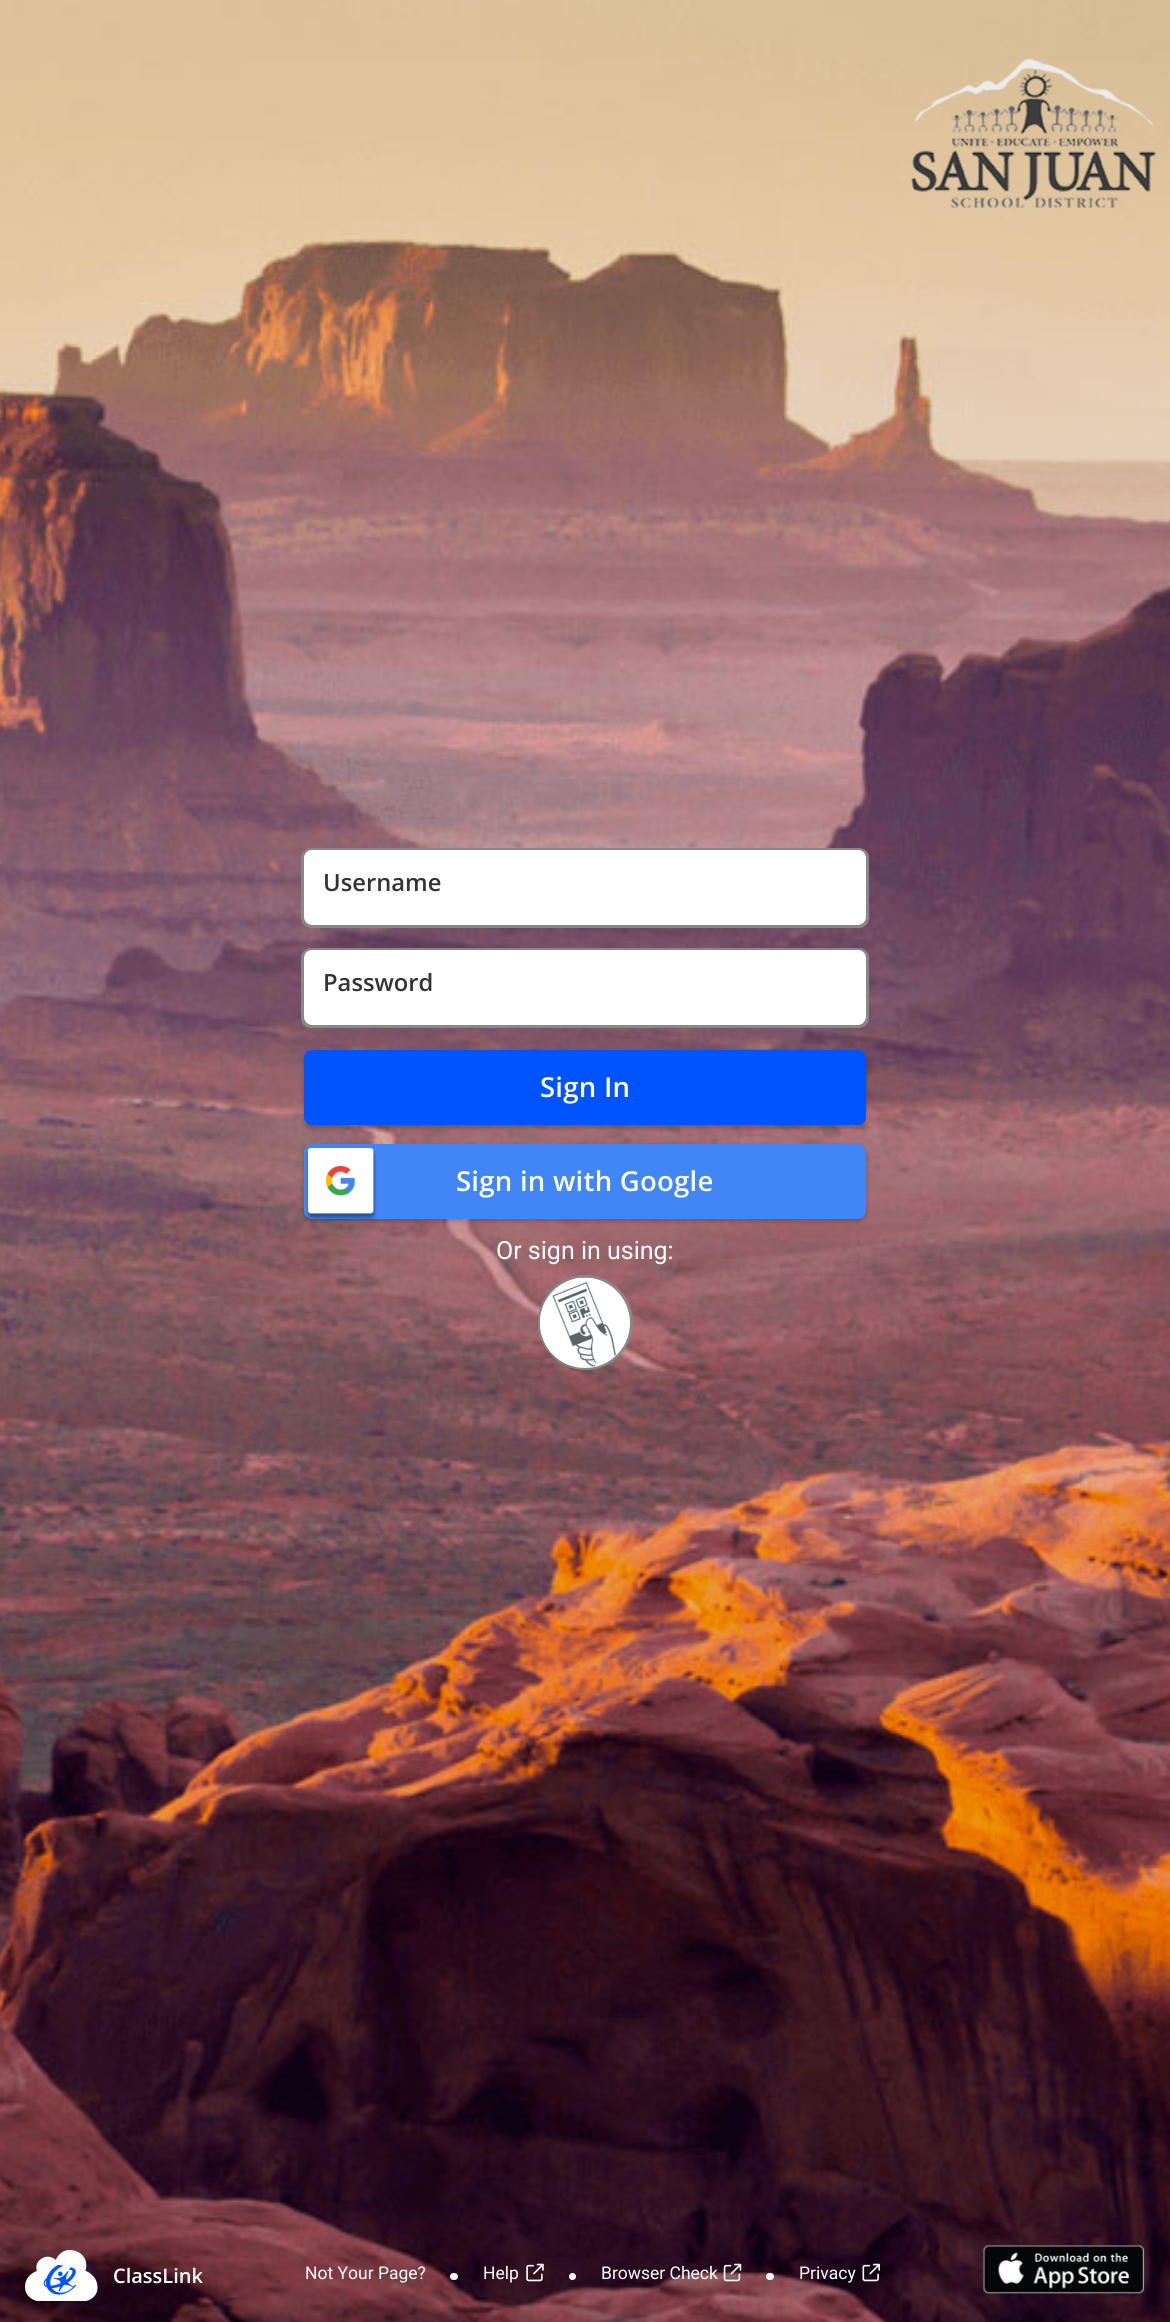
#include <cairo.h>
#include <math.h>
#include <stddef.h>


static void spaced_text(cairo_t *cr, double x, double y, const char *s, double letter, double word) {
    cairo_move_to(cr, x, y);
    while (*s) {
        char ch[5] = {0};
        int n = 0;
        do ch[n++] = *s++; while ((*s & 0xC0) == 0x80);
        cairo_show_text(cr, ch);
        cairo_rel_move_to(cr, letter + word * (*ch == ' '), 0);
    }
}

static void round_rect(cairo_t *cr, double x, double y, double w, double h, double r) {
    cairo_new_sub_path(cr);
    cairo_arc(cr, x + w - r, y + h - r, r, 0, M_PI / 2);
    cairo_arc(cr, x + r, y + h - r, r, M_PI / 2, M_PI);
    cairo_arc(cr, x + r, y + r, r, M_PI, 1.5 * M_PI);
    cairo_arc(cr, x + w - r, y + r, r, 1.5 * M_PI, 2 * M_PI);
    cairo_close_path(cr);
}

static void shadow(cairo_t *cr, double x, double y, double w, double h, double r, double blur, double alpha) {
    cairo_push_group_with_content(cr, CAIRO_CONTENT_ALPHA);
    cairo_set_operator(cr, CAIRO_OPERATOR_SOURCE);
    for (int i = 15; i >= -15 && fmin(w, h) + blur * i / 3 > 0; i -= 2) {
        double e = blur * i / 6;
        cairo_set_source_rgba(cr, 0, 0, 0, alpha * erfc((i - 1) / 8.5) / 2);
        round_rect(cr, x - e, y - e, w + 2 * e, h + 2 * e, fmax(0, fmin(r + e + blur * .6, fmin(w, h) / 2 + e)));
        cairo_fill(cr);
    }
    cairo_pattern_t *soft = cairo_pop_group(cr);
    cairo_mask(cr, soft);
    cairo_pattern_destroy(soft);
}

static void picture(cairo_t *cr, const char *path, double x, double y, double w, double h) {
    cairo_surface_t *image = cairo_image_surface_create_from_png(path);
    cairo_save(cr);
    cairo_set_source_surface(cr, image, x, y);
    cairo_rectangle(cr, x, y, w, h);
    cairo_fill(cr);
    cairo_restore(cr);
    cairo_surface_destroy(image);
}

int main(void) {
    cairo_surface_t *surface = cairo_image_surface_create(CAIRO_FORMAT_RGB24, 1170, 2322);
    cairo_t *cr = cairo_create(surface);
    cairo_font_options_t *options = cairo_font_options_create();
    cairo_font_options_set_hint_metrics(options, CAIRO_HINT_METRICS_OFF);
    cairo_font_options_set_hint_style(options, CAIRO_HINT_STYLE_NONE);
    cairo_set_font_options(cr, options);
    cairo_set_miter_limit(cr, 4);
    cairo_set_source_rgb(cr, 1, 1, 1);
    cairo_paint(cr);
    picture(cr, "img1.png", 0, 0, 1170, 2322);
    picture(cr, "img2.png", 910, 58, 246, 150);
    round_rect(cr, 302.5, 849.5, 565, 77, 8.5);
    cairo_set_source_rgb(cr, 0.529, 0.529, 0.529);
    cairo_set_line_width(cr, 3);
    cairo_stroke(cr);
    cairo_set_source_rgb(cr, 1, 1, 1);
    round_rect(cr, 304, 850, 562, 75, 8);
    cairo_fill(cr);
    cairo_select_font_face(cr, "Open Sans SemiBold", CAIRO_FONT_SLANT_NORMAL, CAIRO_FONT_WEIGHT_NORMAL);
    cairo_set_font_size(cr, 23.75);
    cairo_set_source_rgb(cr, 0.2, 0.2, 0.2);
    cairo_move_to(cr, 323, 891);
    cairo_show_text(cr, "Username");
    round_rect(cr, 302.5, 949.5, 565, 77, 8.5);
    cairo_set_source_rgb(cr, 0.529, 0.529, 0.529);
    cairo_stroke(cr);
    cairo_set_source_rgb(cr, 1, 1, 1);
    round_rect(cr, 304, 950, 562, 75, 8);
    cairo_fill(cr);
    cairo_set_source_rgb(cr, 0.2, 0.2, 0.2);
    cairo_move_to(cr, 323, 991);
    cairo_show_text(cr, "Password");
    cairo_set_source_rgb(cr, 0, 0, 0);
    shadow(cr, 304, 1053, 562, 75, 8, 2.5, 0.25);
    cairo_set_source_rgb(cr, 0, 0.329, 1);
    round_rect(cr, 304, 1050, 562, 75, 8);
    cairo_fill(cr);
    cairo_set_font_size(cr, 27.5);
    cairo_set_source_rgb(cr, 1, 1, 1);
    spaced_text(cr, 540, 1097, "Sign In", 0.25, 0);
    cairo_set_source_rgb(cr, 0, 0, 0);
    shadow(cr, 304, 1146, 562, 75, 8, 2.5, 0.25);
    cairo_set_source_rgb(cr, 0.259, 0.522, 0.957);
    round_rect(cr, 304, 1144, 562, 75, 8);
    cairo_fill(cr);
    picture(cr, "img3.png", 306, 1146, 71, 75);
    cairo_set_source_rgb(cr, 1, 1, 1);
    spaced_text(cr, 456, 1191, "Sign in with Google", 0.25, 0);
    cairo_select_font_face(cr, "Roboto", CAIRO_FONT_SLANT_NORMAL, CAIRO_FONT_WEIGHT_NORMAL);
    cairo_set_font_size(cr, 25);
    cairo_move_to(cr, 496, 1259);
    cairo_show_text(cr, "Or sign in using:");
    cairo_new_path(cr);
    cairo_arc(cr, 585.5, 1322.5, 46, 0, 2 * M_PI);
    cairo_set_source_rgb(cr, 0.529, 0.529, 0.529);
    cairo_stroke(cr);
    cairo_set_source_rgb(cr, 1, 1, 1);
    cairo_arc(cr, 585, 1323, 45, 0, 2 * M_PI);
    cairo_fill(cr);
    picture(cr, "img4.png", 540, 1277, 90, 90);
    picture(cr, "img5.png", 581, 1367, 8, 1);
    picture(cr, "img6.png", 25, 2250, 73, 51);
    cairo_select_font_face(cr, "Open Sans SemiBold", CAIRO_FONT_SLANT_NORMAL, CAIRO_FONT_WEIGHT_NORMAL);
    cairo_set_font_size(cr, 20);
    cairo_move_to(cr, 113, 2283);
    cairo_show_text(cr, "ClassLink");
    cairo_select_font_face(cr, "Roboto", CAIRO_FONT_SLANT_NORMAL, CAIRO_FONT_WEIGHT_NORMAL);
    cairo_set_font_size(cr, 17.5);
    cairo_move_to(cr, 305, 2279);
    cairo_show_text(cr, "Not Your Page?");
    round_rect(cr, 450, 2273, 8, 7, 3.5);
    cairo_fill(cr);
    cairo_move_to(cr, 483, 2279);
    cairo_show_text(cr, "Help");
    picture(cr, "img7.png", 526, 2263, 18, 19);
    cairo_arc(cr, 572.5, 2276.5, 3.5, 0, 2 * M_PI);
    cairo_fill(cr);
    cairo_move_to(cr, 601, 2279);
    cairo_show_text(cr, "Browser Check");
    picture(cr, "img8.png", 723, 2263, 19, 19);
    round_rect(cr, 766, 2273, 8, 7, 3.5);
    cairo_fill(cr);
    cairo_move_to(cr, 799, 2279);
    cairo_show_text(cr, "Privacy");
    picture(cr, "img9.png", 862, 2263, 18, 19);
    picture(cr, "img10.png", 983, 2245, 162, 49);
    cairo_surface_write_to_png(surface, "page.png");
    cairo_font_options_destroy(options);
    cairo_destroy(cr);
    cairo_surface_destroy(surface);
    return 0;
}
